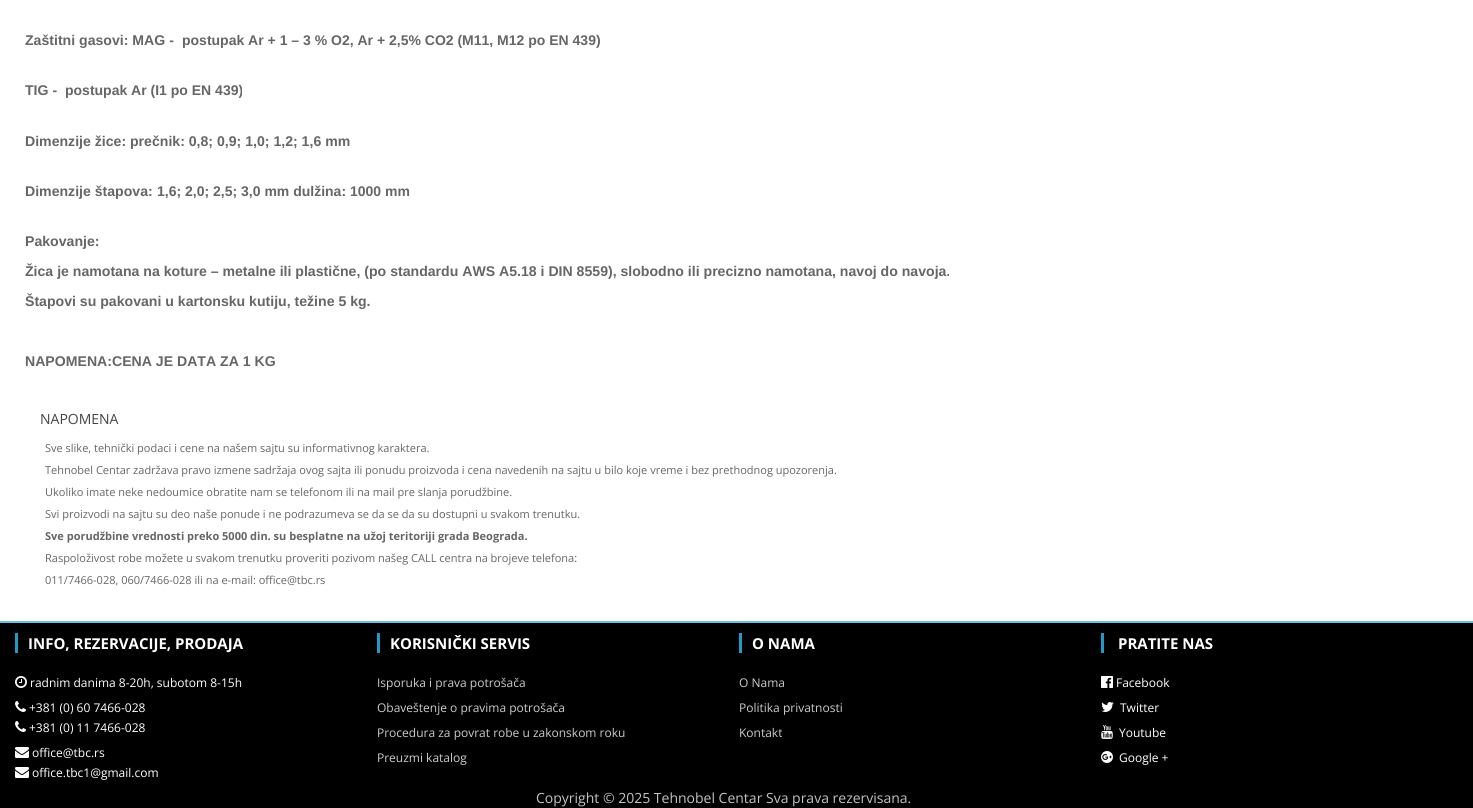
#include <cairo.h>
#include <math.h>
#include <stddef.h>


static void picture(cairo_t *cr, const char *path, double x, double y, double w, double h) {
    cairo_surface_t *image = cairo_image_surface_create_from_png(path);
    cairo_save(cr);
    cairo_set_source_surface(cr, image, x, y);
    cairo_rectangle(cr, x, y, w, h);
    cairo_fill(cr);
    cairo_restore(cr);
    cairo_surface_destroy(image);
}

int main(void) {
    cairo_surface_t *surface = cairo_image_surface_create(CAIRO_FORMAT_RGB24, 1473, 808);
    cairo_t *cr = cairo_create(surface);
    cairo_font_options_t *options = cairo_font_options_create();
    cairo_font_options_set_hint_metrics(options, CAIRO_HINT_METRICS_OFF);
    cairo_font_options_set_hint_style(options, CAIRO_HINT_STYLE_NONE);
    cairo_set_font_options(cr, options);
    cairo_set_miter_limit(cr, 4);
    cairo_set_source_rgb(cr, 1, 1, 1);
    cairo_paint(cr);
    cairo_select_font_face(cr, "Liberation Sans", CAIRO_FONT_SLANT_NORMAL, CAIRO_FONT_WEIGHT_BOLD);
    cairo_set_font_size(cr, 14.1);
    cairo_set_source_rgb(cr, 0.4, 0.4, 0.4);
    cairo_move_to(cr, 25, 45);
    cairo_show_text(cr, "Zaštitni gasovi: MAG -");
    cairo_set_font_size(cr, 14);
    cairo_move_to(cr, 182, 45);
    cairo_show_text(cr, "postupak Ar + 1 – 3 % O2, Ar + 2,5% CO2 (M11, M12 po EN 439)");
    cairo_set_font_size(cr, 14.1);
    cairo_move_to(cr, 25, 95);
    cairo_show_text(cr, "TIG -");
    cairo_set_font_size(cr, 14);
    cairo_move_to(cr, 65, 95);
    cairo_show_text(cr, "postupak Ar (I1 po EN 439)");
    cairo_set_font_size(cr, 14.1);
    cairo_move_to(cr, 25, 146);
    cairo_show_text(cr, "Dimenzije žice: prečnik: 0,8; 0,9; 1,0; 1,2; 1,6 mm");
    cairo_move_to(cr, 25, 196);
    cairo_show_text(cr, "Dimenzije štapova:");
    cairo_set_font_size(cr, 14);
    cairo_move_to(cr, 157, 196);
    cairo_show_text(cr, "1,6; 2,0; 2,5; 3,0 mm dulžina: 1000 mm");
    cairo_set_font_size(cr, 14.1);
    cairo_move_to(cr, 25, 246);
    cairo_show_text(cr, "Pakovanje:");
    cairo_move_to(cr, 25, 276);
    cairo_show_text(cr, "Žica je namotana na koture – metalne ili plastične, (po standardu AWS A5.18 i DIN 8559), slobodno ili precizno namotana, navoj do navoja.");
    cairo_move_to(cr, 25, 306);
    cairo_show_text(cr, "Štapovi su pakovani u kartonsku kutiju, težine 5 kg.");
    cairo_move_to(cr, 25, 366);
    cairo_show_text(cr, "NAPOMENA:CENA JE DATA ZA 1 KG");
    cairo_select_font_face(cr, "Open Sans", CAIRO_FONT_SLANT_NORMAL, CAIRO_FONT_WEIGHT_NORMAL);
    cairo_set_font_size(cr, 14);
    cairo_set_source_rgb(cr, 0.267, 0.267, 0.267);
    cairo_move_to(cr, 40, 424);
    cairo_show_text(cr, "NAPOMENA");
    cairo_set_font_size(cr, 11);
    cairo_set_source_rgb(cr, 0.4, 0.4, 0.4);
    cairo_move_to(cr, 45, 452);
    cairo_show_text(cr, "Sve slike, tehnički podaci i cene na našem sajtu su informativnog karaktera.");
    cairo_move_to(cr, 45, 474);
    cairo_show_text(cr, "Tehnobel Centar zadržava pravo izmene sadržaja ovog sajta ili ponudu proizvoda i cena navedenih na sajtu u bilo koje vreme i bez prethodnog upozorenja.");
    cairo_move_to(cr, 45, 496);
    cairo_show_text(cr, "Ukoliko imate neke nedoumice obratite nam se telefonom ili na mail pre slanja porudžbine.");
    cairo_move_to(cr, 45, 518);
    cairo_show_text(cr, "Svi proizvodi na sajtu su deo naše ponude i ne podrazumeva se da se da su dostupni u svakom trenutku.");
    cairo_select_font_face(cr, "Open Sans", CAIRO_FONT_SLANT_NORMAL, CAIRO_FONT_WEIGHT_BOLD);
    cairo_move_to(cr, 45, 540);
    cairo_show_text(cr, "Sve porudžbine vrednosti preko 5000 din. su besplatne na užoj teritoriji grada Beograda.");
    cairo_select_font_face(cr, "Open Sans", CAIRO_FONT_SLANT_NORMAL, CAIRO_FONT_WEIGHT_NORMAL);
    cairo_move_to(cr, 45, 562);
    cairo_show_text(cr, "Raspoloživost robe možete u svakom trenutku proveriti pozivom našeg CALL centra na brojeve telefona:");
    cairo_move_to(cr, 45, 584);
    cairo_show_text(cr, "011/7466-028, 060/7466-028 ili na e-mail: office@tbc.rs");
    cairo_set_source_rgb(cr, 0, 0, 0);
    cairo_rectangle(cr, 0, 623, 1473, 185);
    cairo_fill(cr);
    cairo_set_source_rgb(cr, 0.396, 0.761, 0.902);
    cairo_rectangle(cr, 0, 621, 1473, 2);
    cairo_fill(cr);
    cairo_set_source_rgb(cr, 0.133, 0.604, 0.784);
    cairo_rectangle(cr, 15, 633, 3, 20);
    cairo_fill(cr);
    cairo_select_font_face(cr, "Open Sans", CAIRO_FONT_SLANT_NORMAL, CAIRO_FONT_WEIGHT_BOLD);
    cairo_set_font_size(cr, 15);
    cairo_set_source_rgb(cr, 1, 1, 1);
    cairo_move_to(cr, 28, 649);
    cairo_show_text(cr, "INFO, REZERVACIJE, PRODAJA");
    picture(cr, "img1.png", 15, 676, 12, 12);
    cairo_select_font_face(cr, "Open Sans", CAIRO_FONT_SLANT_NORMAL, CAIRO_FONT_WEIGHT_NORMAL);
    cairo_set_font_size(cr, 12);
    cairo_move_to(cr, 30, 687);
    cairo_show_text(cr, "radnim danima 8-20h, subotom 8-15h");
    picture(cr, "img2.png", 15, 701, 11, 11);
    cairo_move_to(cr, 29, 712);
    cairo_show_text(cr, "+381 (0) 60 7466-028");
    picture(cr, "img2.png", 15, 721, 11, 11);
    cairo_move_to(cr, 29, 732);
    cairo_show_text(cr, "+381 (0) 11 7466-028");
    picture(cr, "img3.png", 15, 747, 14, 11);
    cairo_move_to(cr, 32, 757);
    cairo_show_text(cr, "office@tbc.rs");
    picture(cr, "img3.png", 15, 767, 14, 11);
    cairo_move_to(cr, 32, 777);
    cairo_show_text(cr, "office.tbc1@gmail.com");
    cairo_set_source_rgb(cr, 0.133, 0.604, 0.784);
    cairo_rectangle(cr, 377, 633, 3, 20);
    cairo_fill(cr);
    cairo_select_font_face(cr, "Open Sans", CAIRO_FONT_SLANT_NORMAL, CAIRO_FONT_WEIGHT_BOLD);
    cairo_set_font_size(cr, 15);
    cairo_set_source_rgb(cr, 1, 1, 1);
    cairo_move_to(cr, 390, 649);
    cairo_show_text(cr, "KORISNIČKI SERVIS");
    cairo_select_font_face(cr, "Open Sans", CAIRO_FONT_SLANT_NORMAL, CAIRO_FONT_WEIGHT_NORMAL);
    cairo_set_font_size(cr, 12);
    cairo_set_source_rgb(cr, 0.8, 0.8, 0.8);
    cairo_move_to(cr, 377, 687);
    cairo_show_text(cr, "Isporuka i prava potrošača");
    cairo_move_to(cr, 377, 712);
    cairo_show_text(cr, "Obaveštenje o pravima potrošača");
    cairo_move_to(cr, 377, 737);
    cairo_show_text(cr, "Procedura za povrat robe u zakonskom roku");
    cairo_move_to(cr, 377, 762);
    cairo_show_text(cr, "Preuzmi katalog");
    cairo_set_source_rgb(cr, 0.133, 0.604, 0.784);
    cairo_rectangle(cr, 739, 633, 3, 20);
    cairo_fill(cr);
    cairo_select_font_face(cr, "Open Sans", CAIRO_FONT_SLANT_NORMAL, CAIRO_FONT_WEIGHT_BOLD);
    cairo_set_font_size(cr, 15);
    cairo_set_source_rgb(cr, 1, 1, 1);
    cairo_move_to(cr, 752, 649);
    cairo_show_text(cr, "O NAMA");
    cairo_select_font_face(cr, "Open Sans", CAIRO_FONT_SLANT_NORMAL, CAIRO_FONT_WEIGHT_NORMAL);
    cairo_set_font_size(cr, 12);
    cairo_set_source_rgb(cr, 0.8, 0.8, 0.8);
    cairo_move_to(cr, 739, 687);
    cairo_show_text(cr, "O Nama");
    cairo_move_to(cr, 739, 712);
    cairo_show_text(cr, "Politika privatnosti");
    cairo_move_to(cr, 739, 737);
    cairo_show_text(cr, "Kontakt");
    cairo_set_source_rgb(cr, 0.133, 0.604, 0.784);
    cairo_rectangle(cr, 1101, 633, 3, 20);
    cairo_fill(cr);
    cairo_select_font_face(cr, "Open Sans", CAIRO_FONT_SLANT_NORMAL, CAIRO_FONT_WEIGHT_BOLD);
    cairo_set_font_size(cr, 15);
    cairo_set_source_rgb(cr, 1, 1, 1);
    cairo_move_to(cr, 1118, 649);
    cairo_show_text(cr, "PRATITE NAS");
    picture(cr, "img4.png", 1101, 676, 12, 12);
    cairo_select_font_face(cr, "Open Sans", CAIRO_FONT_SLANT_NORMAL, CAIRO_FONT_WEIGHT_NORMAL);
    cairo_set_font_size(cr, 12);
    cairo_move_to(cr, 1116, 687);
    cairo_show_text(cr, "Facebook");
    picture(cr, "img5.png", 1101, 702, 13, 10);
    cairo_move_to(cr, 1120, 712);
    cairo_show_text(cr, "Twitter");
    picture(cr, "img6.png", 1101, 725, 12, 14);
    cairo_move_to(cr, 1119, 737);
    cairo_show_text(cr, "Youtube");
    picture(cr, "img7.png", 1101, 751, 12, 12);
    cairo_move_to(cr, 1119, 762);
    cairo_show_text(cr, "Google +");
    cairo_set_font_size(cr, 14);
    cairo_set_source_rgb(cr, 0.765, 0.765, 0.765);
    cairo_move_to(cr, 536, 803);
    cairo_show_text(cr, "Copyright © 2025 Tehnobel Centar Sva prava rezervisana.");
    cairo_surface_write_to_png(surface, "page.png");
    cairo_font_options_destroy(options);
    cairo_destroy(cr);
    cairo_surface_destroy(surface);
    return 0;
}
